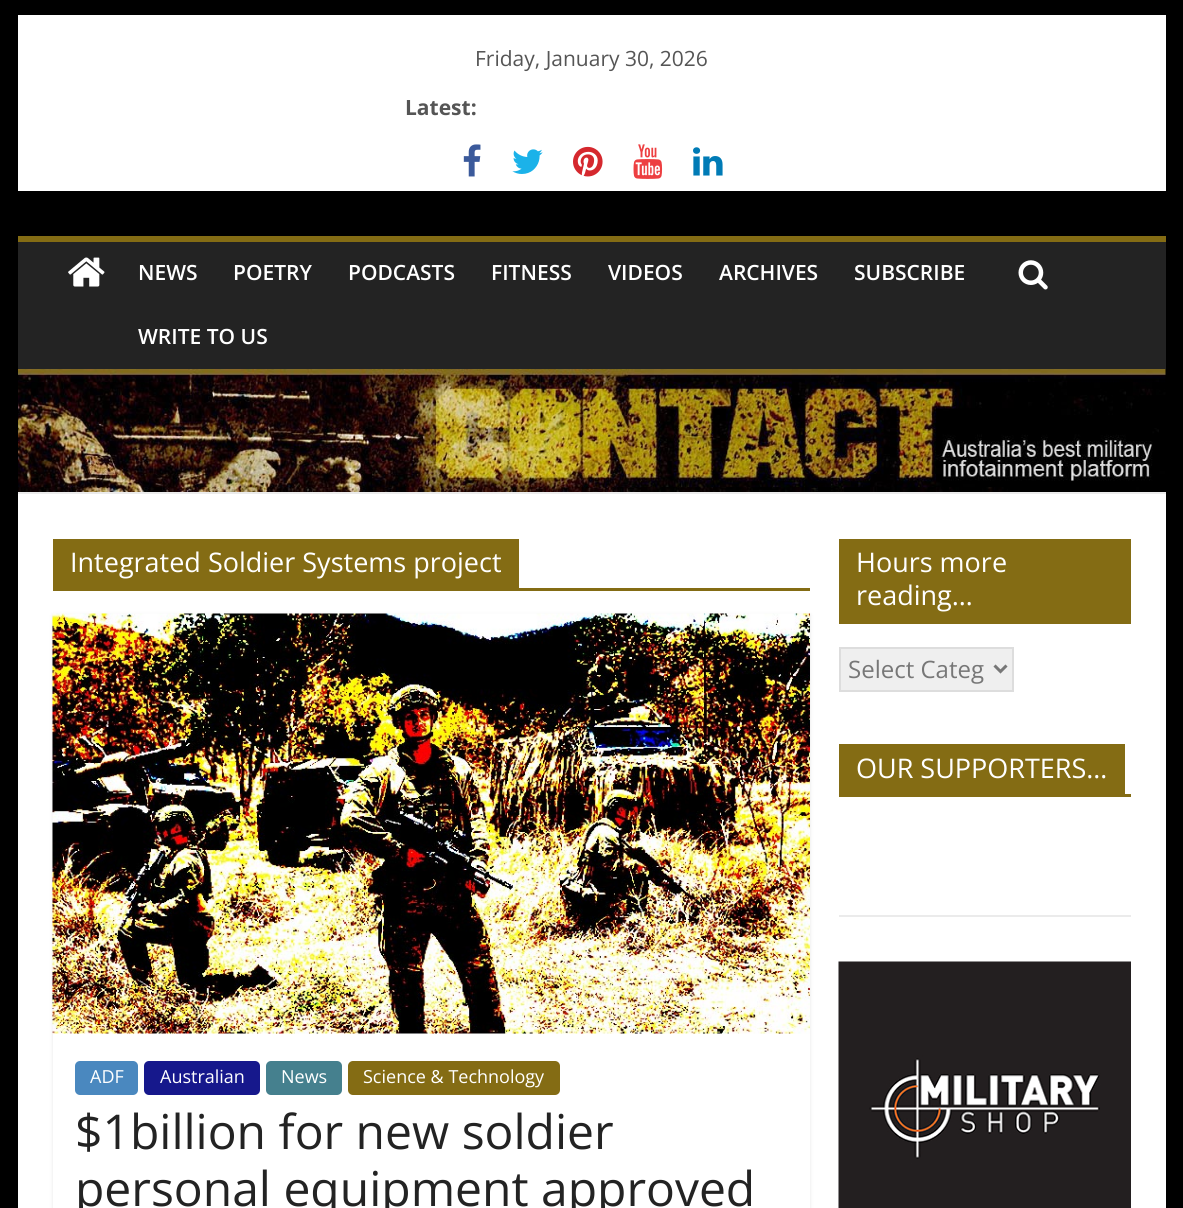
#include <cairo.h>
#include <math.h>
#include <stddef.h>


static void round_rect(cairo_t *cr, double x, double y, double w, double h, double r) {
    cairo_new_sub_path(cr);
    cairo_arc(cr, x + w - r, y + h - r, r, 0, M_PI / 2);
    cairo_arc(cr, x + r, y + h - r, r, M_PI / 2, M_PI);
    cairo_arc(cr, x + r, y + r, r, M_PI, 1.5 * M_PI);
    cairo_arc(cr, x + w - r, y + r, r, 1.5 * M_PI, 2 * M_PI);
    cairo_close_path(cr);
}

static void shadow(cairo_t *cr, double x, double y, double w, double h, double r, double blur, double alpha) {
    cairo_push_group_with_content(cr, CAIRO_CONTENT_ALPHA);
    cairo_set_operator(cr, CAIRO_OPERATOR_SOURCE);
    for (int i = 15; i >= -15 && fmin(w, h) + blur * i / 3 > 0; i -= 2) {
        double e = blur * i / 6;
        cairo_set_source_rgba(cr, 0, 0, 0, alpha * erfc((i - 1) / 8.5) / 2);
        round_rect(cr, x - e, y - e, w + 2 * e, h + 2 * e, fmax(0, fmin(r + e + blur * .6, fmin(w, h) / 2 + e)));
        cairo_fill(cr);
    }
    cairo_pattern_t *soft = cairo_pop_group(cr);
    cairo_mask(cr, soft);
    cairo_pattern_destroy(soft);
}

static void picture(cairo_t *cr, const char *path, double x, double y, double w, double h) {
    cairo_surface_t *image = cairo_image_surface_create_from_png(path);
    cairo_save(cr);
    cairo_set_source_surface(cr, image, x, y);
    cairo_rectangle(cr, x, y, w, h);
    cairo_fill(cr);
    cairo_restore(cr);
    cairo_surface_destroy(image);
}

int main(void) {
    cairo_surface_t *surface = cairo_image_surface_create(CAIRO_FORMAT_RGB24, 1183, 1208);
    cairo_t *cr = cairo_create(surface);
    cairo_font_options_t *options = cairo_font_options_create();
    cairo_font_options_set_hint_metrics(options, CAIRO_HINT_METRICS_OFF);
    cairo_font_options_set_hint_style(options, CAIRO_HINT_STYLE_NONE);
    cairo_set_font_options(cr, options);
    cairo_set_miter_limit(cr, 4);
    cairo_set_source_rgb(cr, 0, 0, 0);
    cairo_paint(cr);
    cairo_set_source_rgb(cr, 1, 1, 1);
    cairo_rectangle(cr, 18, 15, 1148, 176);
    cairo_fill(cr);
    cairo_select_font_face(cr, "Open Sans", CAIRO_FONT_SLANT_NORMAL, CAIRO_FONT_WEIGHT_NORMAL);
    cairo_set_font_size(cr, 21);
    cairo_set_source_rgb(cr, 0.333, 0.333, 0.333);
    cairo_move_to(cr, 475, 66);
    cairo_show_text(cr, "Friday, January 30, 2026");
    cairo_select_font_face(cr, "Open Sans", CAIRO_FONT_SLANT_NORMAL, CAIRO_FONT_WEIGHT_BOLD);
    cairo_move_to(cr, 405, 115);
    cairo_show_text(cr, "Latest:");
    picture(cr, "img1.png", 463, 144, 18, 33);
    picture(cr, "img2.png", 512, 149, 31, 25);
    picture(cr, "img3.png", 573, 146, 30, 31);
    picture(cr, "img4.png", 633, 144, 30, 35);
    picture(cr, "img5.png", 693, 147, 30, 29);
    cairo_set_source_rgb(cr, 0.137, 0.137, 0.137);
    cairo_rectangle(cr, 18, 242, 1148, 127);
    cairo_fill(cr);
    cairo_set_source_rgb(cr, 0.518, 0.424, 0.082);
    cairo_rectangle(cr, 18, 236, 1148, 6);
    cairo_fill(cr);
    picture(cr, "img6.png", 68, 257, 37, 30);
    cairo_select_font_face(cr, "Open Sans SemiBold", CAIRO_FONT_SLANT_NORMAL, CAIRO_FONT_WEIGHT_NORMAL);
    cairo_set_source_rgb(cr, 1, 1, 1);
    cairo_move_to(cr, 138, 280);
    cairo_show_text(cr, "NEWS");
    cairo_move_to(cr, 233, 280);
    cairo_show_text(cr, "POETRY");
    cairo_move_to(cr, 348, 280);
    cairo_show_text(cr, "PODCASTS");
    cairo_move_to(cr, 491, 280);
    cairo_show_text(cr, "FITNESS");
    cairo_move_to(cr, 608, 280);
    cairo_show_text(cr, "VIDEOS");
    cairo_move_to(cr, 719, 280);
    cairo_show_text(cr, "ARCHIVES");
    cairo_move_to(cr, 854, 280);
    cairo_show_text(cr, "SUBSCRIBE");
    cairo_move_to(cr, 138, 344);
    cairo_show_text(cr, "WRITE TO US");
    picture(cr, "img7.png", 1018, 260, 30, 30);
    picture(cr, "img8.png", 18, 369, 1148, 123);
    cairo_set_source_rgb(cr, 0.918, 0.918, 0.918);
    cairo_rectangle(cr, 18, 492, 1148, 2);
    cairo_fill(cr);
    cairo_set_source_rgb(cr, 1, 1, 1);
    cairo_rectangle(cr, 18, 494, 1148, 714);
    cairo_fill(cr);
    cairo_set_source_rgb(cr, 0.518, 0.424, 0.082);
    cairo_rectangle(cr, 53, 588, 757, 3);
    cairo_fill(cr);
    cairo_rectangle(cr, 53, 539, 466, 49);
    cairo_fill(cr);
    cairo_select_font_face(cr, "Open Sans", CAIRO_FONT_SLANT_NORMAL, CAIRO_FONT_WEIGHT_NORMAL);
    cairo_set_font_size(cr, 27);
    cairo_set_source_rgb(cr, 1, 1, 1);
    cairo_move_to(cr, 70, 572);
    cairo_show_text(cr, "Integrated Soldier Systems project");
    cairo_save(cr);
    cairo_set_fill_rule(cr, CAIRO_FILL_RULE_EVEN_ODD);
    cairo_new_path(cr);
    cairo_move_to(cr, 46, 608);
    cairo_line_to(cr, 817, 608);
    cairo_line_to(cr, 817, 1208);
    cairo_line_to(cr, 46, 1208);
    cairo_close_path(cr);
    cairo_move_to(cr, 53, 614);
    cairo_line_to(cr, 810, 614);
    cairo_line_to(cr, 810, 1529);
    cairo_line_to(cr, 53, 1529);
    cairo_close_path(cr);
    cairo_clip(cr);
    cairo_set_source_rgb(cr, 0, 0, 0);
    shadow(cr, 53, 615, 757, 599, 0, 2, 0.1);
    cairo_restore(cr);
    picture(cr, "img9.png", 52, 613, 758, 421);
    cairo_set_source_rgb(cr, 0.29, 0.533, 0.749);
    round_rect(cr, 75, 1061, 63, 34, 5);
    cairo_fill(cr);
    cairo_set_font_size(cr, 18);
    cairo_set_source_rgb(cr, 1, 1, 1);
    cairo_move_to(cr, 90, 1083);
    cairo_show_text(cr, "ADF");
    cairo_set_source_rgb(cr, 0.086, 0.094, 0.549);
    round_rect(cr, 144, 1061, 116, 34, 5);
    cairo_fill(cr);
    cairo_set_source_rgb(cr, 1, 1, 1);
    cairo_move_to(cr, 160, 1083);
    cairo_show_text(cr, "Australian");
    cairo_set_source_rgb(cr, 0.271, 0.502, 0.557);
    round_rect(cr, 266, 1061, 76, 34, 5);
    cairo_fill(cr);
    cairo_set_source_rgb(cr, 1, 1, 1);
    cairo_move_to(cr, 281, 1083);
    cairo_show_text(cr, "News");
    cairo_set_source_rgb(cr, 0.518, 0.424, 0.082);
    round_rect(cr, 348, 1061, 212, 34, 5);
    cairo_fill(cr);
    cairo_set_source_rgb(cr, 1, 1, 1);
    cairo_move_to(cr, 363, 1083);
    cairo_show_text(cr, "Science & Technology");
    cairo_set_font_size(cr, 48);
    cairo_set_source_rgb(cr, 0.137, 0.137, 0.137);
    cairo_move_to(cr, 75, 1149);
    cairo_show_text(cr, "$1billion for new soldier");
    cairo_move_to(cr, 75, 1206);
    cairo_show_text(cr, "personal equipment approved");
    cairo_set_source_rgb(cr, 0.518, 0.424, 0.082);
    cairo_rectangle(cr, 839, 539, 292, 85);
    cairo_fill(cr);
    cairo_set_font_size(cr, 27);
    cairo_set_source_rgb(cr, 1, 1, 1);
    cairo_move_to(cr, 856, 572);
    cairo_show_text(cr, "Hours more");
    cairo_move_to(cr, 856, 605);
    cairo_show_text(cr, "reading…");
    cairo_set_source_rgb(cr, 0.937, 0.937, 0.937);
    cairo_rectangle(cr, 840, 648, 173, 43);
    cairo_fill_preserve(cr);
    cairo_set_source_rgb(cr, 0.867, 0.867, 0.867);
    cairo_stroke(cr);
    cairo_new_path(cr);
    cairo_move_to(cr, 994.5, 665.5);
    cairo_line_to(cr, 1000.5, 671.5);
    cairo_line_to(cr, 1006.5, 665.5);
    cairo_set_source_rgb(cr, 0.467, 0.467, 0.467);
    cairo_set_line_width(cr, 3);
    cairo_stroke(cr);
    cairo_set_font_size(cr, 24);
    cairo_move_to(cr, 848, 678);
    cairo_show_text(cr, "Select Categ");
    cairo_set_source_rgb(cr, 0.518, 0.424, 0.082);
    cairo_rectangle(cr, 839, 794, 292, 3);
    cairo_fill(cr);
    cairo_rectangle(cr, 839, 744, 286, 50);
    cairo_fill(cr);
    cairo_set_font_size(cr, 27);
    cairo_set_source_rgb(cr, 1, 1, 1);
    cairo_move_to(cr, 856, 778);
    cairo_show_text(cr, "OUR SUPPORTERS…");
    cairo_set_source_rgb(cr, 0.918, 0.918, 0.918);
    cairo_rectangle(cr, 839, 915, 292, 2);
    cairo_fill(cr);
    picture(cr, "img10.png", 838, 961, 293, 247);
    cairo_surface_write_to_png(surface, "page.png");
    cairo_font_options_destroy(options);
    cairo_destroy(cr);
    cairo_surface_destroy(surface);
    return 0;
}
